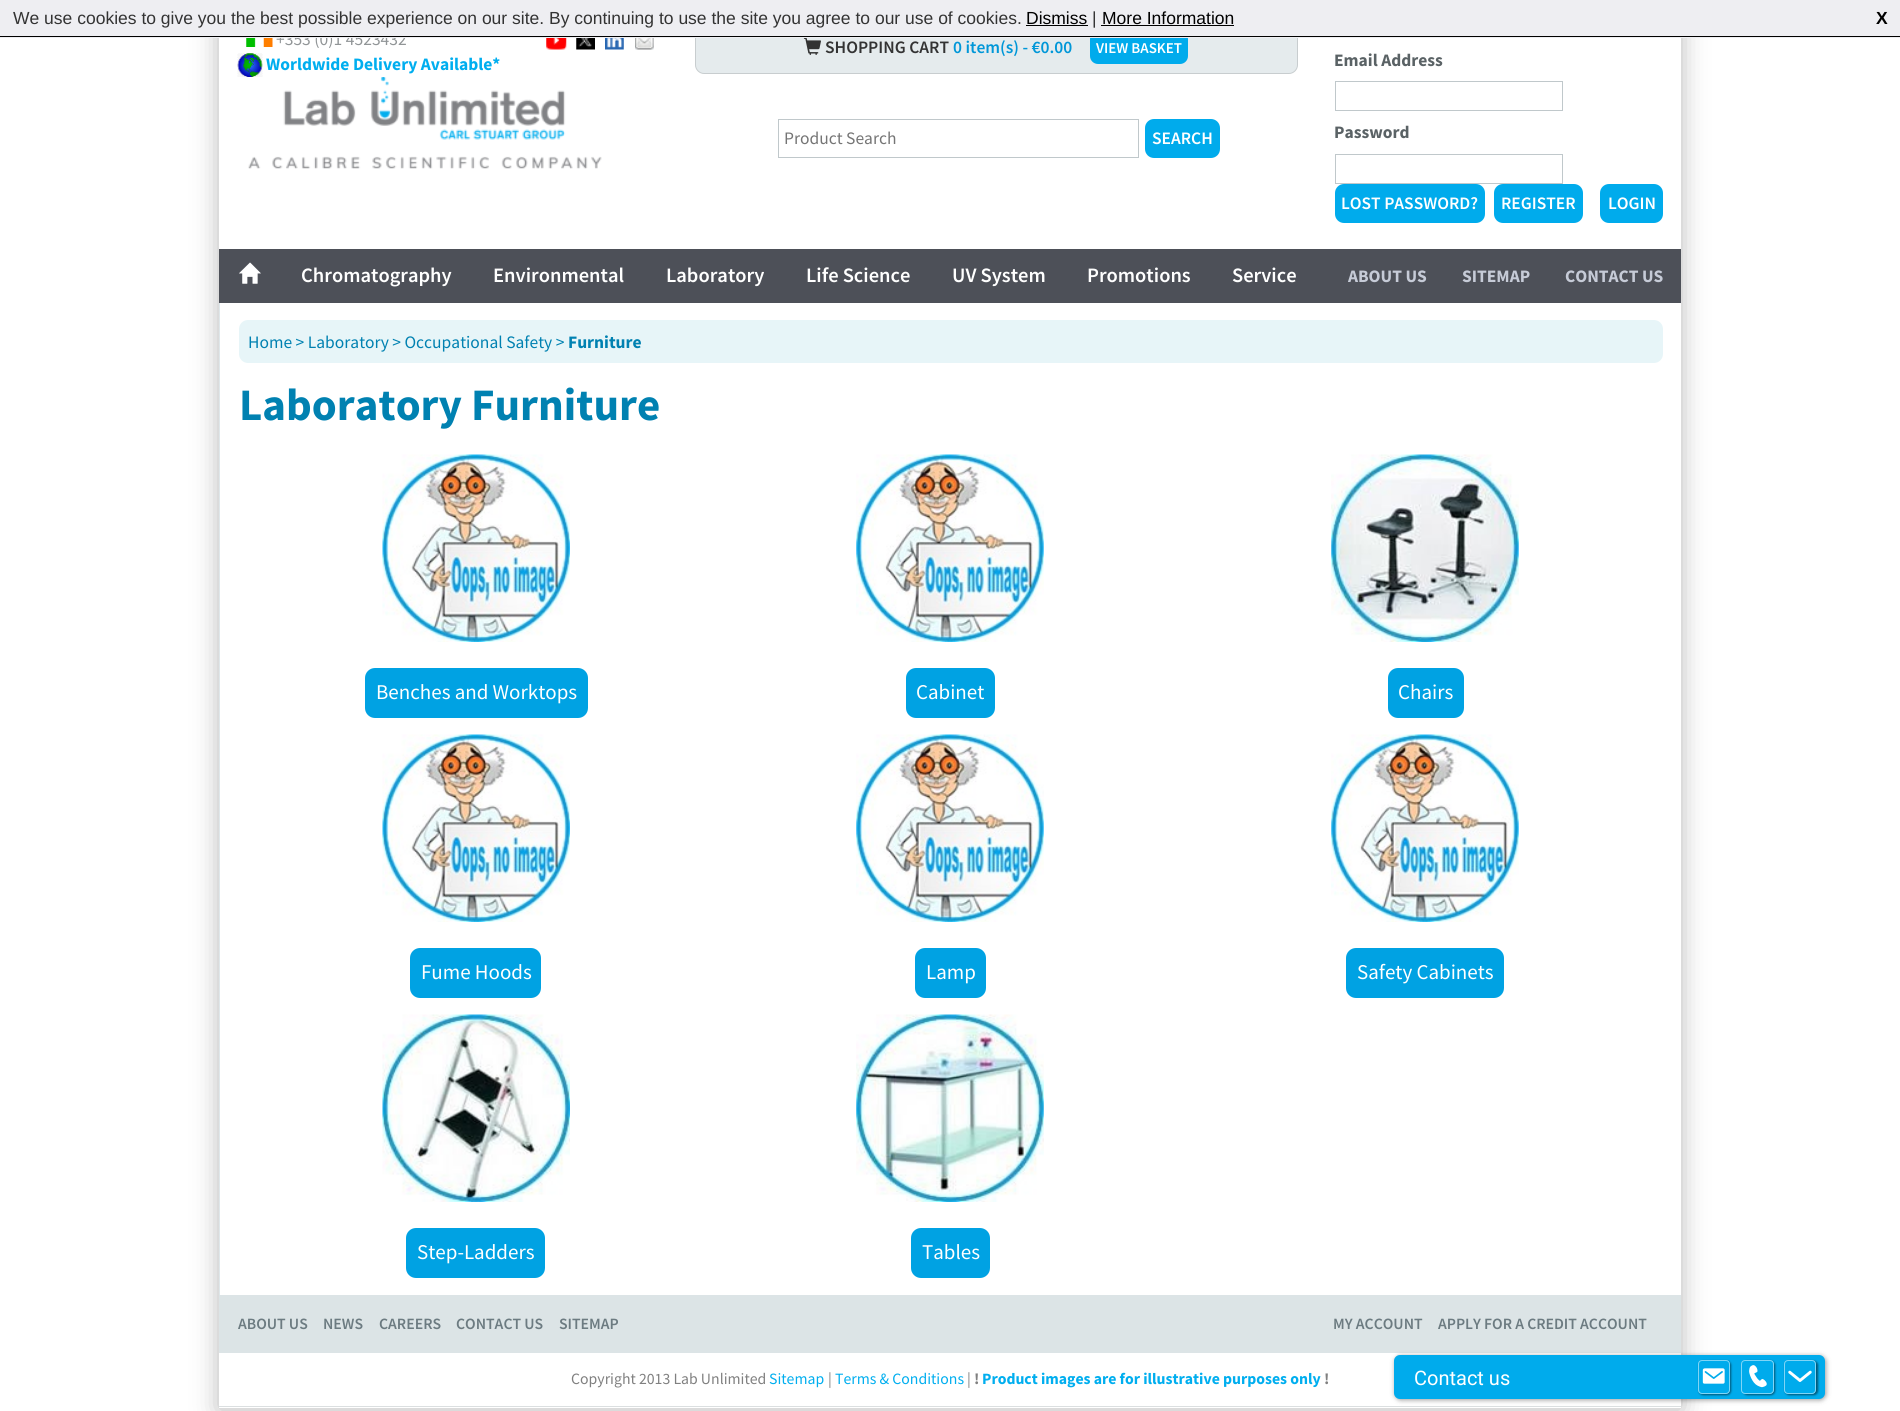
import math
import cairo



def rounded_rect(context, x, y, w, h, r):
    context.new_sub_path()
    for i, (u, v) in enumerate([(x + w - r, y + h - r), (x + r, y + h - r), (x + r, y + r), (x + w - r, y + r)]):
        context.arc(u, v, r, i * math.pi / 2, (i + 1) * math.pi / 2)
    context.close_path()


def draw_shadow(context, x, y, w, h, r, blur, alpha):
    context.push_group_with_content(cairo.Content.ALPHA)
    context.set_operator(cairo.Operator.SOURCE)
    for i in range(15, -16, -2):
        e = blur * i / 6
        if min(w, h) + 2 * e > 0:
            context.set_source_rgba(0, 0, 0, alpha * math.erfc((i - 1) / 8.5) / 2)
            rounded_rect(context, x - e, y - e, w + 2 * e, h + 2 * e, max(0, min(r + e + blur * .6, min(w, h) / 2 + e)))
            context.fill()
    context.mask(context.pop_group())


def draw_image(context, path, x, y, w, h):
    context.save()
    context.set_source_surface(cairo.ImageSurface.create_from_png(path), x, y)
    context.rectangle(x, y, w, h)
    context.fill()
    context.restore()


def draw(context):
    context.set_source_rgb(1, 1, 1)
    context.paint()
    context.set_source_rgb(126 / 255, 126 / 255, 126 / 255)
    draw_shadow(context, 219, 24, 1462, 1386, 0, 12.5, 0.57)
    context.set_source_rgb(1, 1, 1)
    context.rectangle(219, 38, 1462, 1370)
    context.fill()
    context.set_source_rgb(219 / 255, 223 / 255, 224 / 255)
    context.rectangle(219, 1406, 1462, 1)
    context.fill()
    draw_image(context, "images/1.png", 246, 38, 27, 9)
    draw_image(context, "images/2.png", 546, 38, 21, 12)
    draw_image(context, "images/3.png", 576, 38, 19, 12)
    draw_image(context, "images/4.png", 605, 38, 19, 12)
    draw_image(context, "images/5.png", 635, 38, 19, 12)
    draw_image(context, "images/6.png", 237, 53, 26, 24)
    context.set_source_rgb(229 / 255, 235 / 255, 237 / 255)
    context.new_path()
    context.move_to(695.5, 21.5)
    context.line_to(1297.5, 21.5)
    context.line_to(1297.5, 65)
    context.curve_to(1297.5, 69.5, 1293.5, 73.5, 1289, 73.5)
    context.line_to(704, 73.5)
    context.curve_to(699.5, 73.5, 695.5, 69.5, 695.5, 65)
    context.close_path()
    context.fill_preserve()
    context.set_source_rgb(200 / 255, 205 / 255, 207 / 255)
    context.set_line_width(1)
    context.stroke()
    draw_image(context, "images/7.png", 803, 38, 18, 17)
    context.set_source_rgb(0, 171 / 255, 236 / 255)
    rounded_rect(context, 1090, 31, 98, 33, 8)
    context.fill()
    draw_image(context, "images/8.png", 248, 77, 354, 92)
    context.rectangle(778.5, 119.5, 360, 38)
    context.set_source_rgb(192 / 255, 200 / 255, 203 / 255)
    context.stroke()
    context.set_source_rgb(0, 171 / 255, 236 / 255)
    rounded_rect(context, 1145, 119, 75, 39, 9)
    context.fill()
    context.rectangle(1335.5, 81.5, 227, 29)
    context.set_source_rgb(192 / 255, 200 / 255, 203 / 255)
    context.stroke()
    context.rectangle(1335.5, 154.5, 227, 29)
    context.stroke()
    context.set_source_rgb(0, 171 / 255, 236 / 255)
    rounded_rect(context, 1335, 184, 150, 39, 9)
    context.fill()
    rounded_rect(context, 1494, 184, 89, 39, 9)
    context.fill()
    rounded_rect(context, 1600, 184, 63, 39, 9)
    context.fill()
    context.set_source_rgb(77 / 255, 80 / 255, 88 / 255)
    context.rectangle(219, 249, 1462, 54)
    context.fill()
    draw_image(context, "images/9.png", 239, 262, 22, 22)
    context.set_source_rgb(223 / 255, 231 / 255, 234 / 255)
    context.rectangle(219, 303, 1, 992)
    context.fill()
    context.set_source_rgb(231 / 255, 245 / 255, 248 / 255)
    rounded_rect(context, 239, 320, 1424, 43, 9)
    context.fill()
    draw_image(context, "images/10.png", 382, 454, 188, 188)
    context.set_source_rgb(0, 162 / 255, 227 / 255)
    rounded_rect(context, 365, 668, 223, 50, 10)
    context.fill()
    draw_image(context, "images/11.png", 856, 454, 188, 188)
    rounded_rect(context, 906, 668, 89, 50, 10)
    context.fill()
    draw_image(context, "images/12.png", 1331, 454, 188, 188)
    rounded_rect(context, 1388, 668, 76, 50, 10)
    context.fill()
    draw_image(context, "images/10.png", 382, 734, 188, 188)
    rounded_rect(context, 410, 948, 131, 50, 10)
    context.fill()
    draw_image(context, "images/11.png", 856, 734, 188, 188)
    rounded_rect(context, 915, 948, 71, 50, 10)
    context.fill()
    draw_image(context, "images/13.png", 1331, 734, 188, 188)
    rounded_rect(context, 1346, 948, 158, 50, 10)
    context.fill()
    draw_image(context, "images/14.png", 382, 1014, 188, 188)
    rounded_rect(context, 406, 1228, 139, 50, 10)
    context.fill()
    draw_image(context, "images/15.png", 856, 1014, 188, 188)
    rounded_rect(context, 911, 1228, 79, 50, 10)
    context.fill()
    context.set_source_rgb(220 / 255, 228 / 255, 230 / 255)
    context.rectangle(219, 1295, 1462, 58)
    context.fill()
    context.set_source_rgb(0, 0, 0)
    draw_shadow(context, 1395, 1356, 431, 44, 6, 2.5, 0.4)
    context.set_source_rgb(0, 171 / 255, 236 / 255)
    rounded_rect(context, 1394, 1355, 431, 44, 6)
    context.fill()
    context.save()
    context.set_fill_rule(cairo.FillRule.EVEN_ODD)
    context.new_path()
    context.move_to(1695, 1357)
    context.line_to(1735, 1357)
    context.line_to(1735, 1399)
    context.line_to(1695, 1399)
    context.close_path()
    context.move_to(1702, 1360)
    context.line_to(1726, 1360)
    context.curve_to(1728, 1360, 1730, 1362, 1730, 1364)
    context.line_to(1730, 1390)
    context.curve_to(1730, 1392, 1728, 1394, 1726, 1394)
    context.line_to(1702, 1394)
    context.curve_to(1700, 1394, 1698, 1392, 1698, 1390)
    context.line_to(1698, 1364)
    context.curve_to(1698, 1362, 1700, 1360, 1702, 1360)
    context.close_path()
    context.clip()
    context.set_source_rgb(0, 0, 0)
    draw_shadow(context, 1699, 1361, 32, 34, 4, 1, 0.5)
    context.restore()
    rounded_rect(context, 1698.5, 1360.5, 31, 33, 3.5)
    context.set_source_rgba(1, 1, 1, 0.5)
    context.stroke()
    draw_image(context, "images/16.png", 1702, 1368, 23, 16)
    context.save()
    context.set_fill_rule(cairo.FillRule.EVEN_ODD)
    context.new_path()
    context.move_to(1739, 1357)
    context.line_to(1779, 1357)
    context.line_to(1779, 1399)
    context.line_to(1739, 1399)
    context.close_path()
    context.move_to(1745, 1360)
    context.line_to(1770, 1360)
    context.curve_to(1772, 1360, 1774, 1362, 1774, 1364)
    context.line_to(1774, 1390)
    context.curve_to(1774, 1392, 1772, 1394, 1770, 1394)
    context.line_to(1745, 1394)
    context.curve_to(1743, 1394, 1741, 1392, 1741, 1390)
    context.line_to(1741, 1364)
    context.curve_to(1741, 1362, 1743, 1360, 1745, 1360)
    context.close_path()
    context.clip()
    context.set_source_rgb(0, 0, 0)
    draw_shadow(context, 1743, 1361, 32, 34, 4, 1, 0.5)
    context.restore()
    rounded_rect(context, 1741.5, 1360.5, 32, 33, 3.5)
    context.stroke()
    draw_image(context, "images/17.png", 1749, 1365, 18, 23)
    context.save()
    context.set_fill_rule(cairo.FillRule.EVEN_ODD)
    context.new_path()
    context.move_to(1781, 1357)
    context.line_to(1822, 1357)
    context.line_to(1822, 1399)
    context.line_to(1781, 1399)
    context.close_path()
    context.move_to(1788, 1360)
    context.line_to(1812, 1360)
    context.curve_to(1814, 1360, 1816, 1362, 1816, 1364)
    context.line_to(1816, 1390)
    context.curve_to(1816, 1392, 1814, 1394, 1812, 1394)
    context.line_to(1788, 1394)
    context.curve_to(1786, 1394, 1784, 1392, 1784, 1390)
    context.line_to(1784, 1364)
    context.curve_to(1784, 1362, 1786, 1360, 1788, 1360)
    context.close_path()
    context.clip()
    context.set_source_rgb(0, 0, 0)
    draw_shadow(context, 1785, 1361, 33, 34, 4, 1, 0.5)
    context.restore()
    rounded_rect(context, 1784.5, 1360.5, 31, 33, 3.5)
    context.stroke()
    draw_image(context, "images/18.png", 1788, 1370, 24, 12)
    context.select_font_face("Source Sans Pro")
    context.set_font_size(17.5)
    context.set_source_rgb(145 / 255, 149 / 255, 151 / 255)
    context.move_to(276, 45)
    context.show_text("+353 (0)1 4523432")
    context.set_source_rgb(238 / 255, 238 / 255, 242 / 255)
    context.rectangle(0, 0, 1900, 38)
    context.fill()
    context.select_font_face("Liberation Sans", cairo.FontSlant.NORMAL, cairo.FontWeight.BOLD)
    context.set_source_rgb(0, 0, 0)
    context.move_to(1876, 24)
    context.show_text("X")
    context.select_font_face("Liberation Sans")
    context.move_to(1102, 24)
    context.show_text("More Information")
    context.rectangle(1101, 25, 133, 1)
    context.fill()
    context.set_source_rgb(51 / 255, 51 / 255, 51 / 255)
    context.move_to(1092, 24)
    context.show_text("|")
    context.set_source_rgb(0, 0, 0)
    context.move_to(1026, 24)
    context.show_text("Dismiss")
    context.rectangle(1026, 25, 62, 1)
    context.fill()
    context.set_source_rgb(51 / 255, 51 / 255, 51 / 255)
    context.move_to(13, 24)
    context.show_text("We use cookies to give you the best possible experience on our site. By continuing to use the site you agree to our use of cookies.")
    context.set_source_rgb(0, 0, 0)
    context.rectangle(0, 36, 1900, 1)
    context.fill()
    context.select_font_face("Source Sans Pro", cairo.FontSlant.NORMAL, cairo.FontWeight.BOLD)
    context.set_source_rgb(0, 174 / 255, 239 / 255)
    context.move_to(266, 70)
    context.show_text("Worldwide Delivery Available*")
    context.select_font_face("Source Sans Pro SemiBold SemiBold")
    context.set_source_rgb(51 / 255, 51 / 255, 51 / 255)
    context.move_to(825, 53)
    context.show_text("SHOPPING CART")
    context.set_source_rgb(0, 151 / 255, 216 / 255)
    context.move_to(953, 53)
    context.show_text("0 item(s) - €0.00")
    context.set_font_size(15)
    context.set_source_rgb(1, 1, 1)
    context.move_to(1096, 53)
    context.show_text("VIEW BASKET")
    context.select_font_face("Source Sans Pro")
    context.set_font_size(17.5)
    context.set_source_rgb(117 / 255, 117 / 255, 117 / 255)
    context.move_to(784, 144)
    context.show_text("Product Search")
    context.select_font_face("Source Sans Pro SemiBold SemiBold")
    context.set_source_rgb(1, 1, 1)
    context.move_to(1152, 144)
    context.show_text("SEARCH")
    context.select_font_face("Source Sans Pro", cairo.FontSlant.NORMAL, cairo.FontWeight.BOLD)
    context.set_source_rgb(90 / 255, 98 / 255, 101 / 255)
    context.move_to(1334, 66)
    context.show_text("Email Address")
    context.move_to(1334, 138)
    context.show_text("Password")
    context.select_font_face("Source Sans Pro SemiBold SemiBold")
    context.set_source_rgb(1, 1, 1)
    context.move_to(1341, 209)
    context.show_text("LOST PASSWORD?")
    context.move_to(1501, 209)
    context.show_text("REGISTER")
    context.move_to(1608, 209)
    context.show_text("LOGIN")
    context.set_font_size(20.5)
    context.move_to(301, 282)
    context.show_text("Chromatography")
    context.move_to(493, 282)
    context.show_text("Environmental")
    context.move_to(666, 282)
    context.show_text("Laboratory")
    context.move_to(806, 282)
    context.show_text("Life Science")
    context.move_to(952, 282)
    context.show_text("UV System")
    context.move_to(1087, 282)
    context.show_text("Promotions")
    context.move_to(1232, 282)
    context.show_text("Service")
    context.select_font_face("Source Sans Pro", cairo.FontSlant.NORMAL, cairo.FontWeight.BOLD)
    context.set_font_size(17.5)
    context.set_source_rgb(198 / 255, 203 / 255, 215 / 255)
    context.move_to(1348, 282)
    context.show_text("ABOUT US")
    context.move_to(1462, 282)
    context.show_text("SITEMAP")
    context.move_to(1565, 282)
    context.show_text("CONTACT US")
    context.select_font_face("Source Sans Pro")
    context.set_source_rgb(0, 129 / 255, 177 / 255)
    context.move_to(248, 348)
    context.show_text("Home > Laboratory > Occupational Safety >")
    context.select_font_face("Source Sans Pro", cairo.FontSlant.NORMAL, cairo.FontWeight.BOLD)
    context.move_to(568, 348)
    context.show_text("Furniture")
    context.set_font_size(45)
    context.move_to(239, 420)
    context.show_text("Laboratory Furniture")
    context.select_font_face("Source Sans Pro")
    context.set_font_size(21)
    context.set_source_rgb(1, 1, 1)
    context.move_to(376, 699)
    context.show_text("Benches and Worktops")
    context.move_to(916, 699)
    context.show_text("Cabinet")
    context.move_to(1398, 699)
    context.show_text("Chairs")
    context.move_to(421, 979)
    context.show_text("Fume Hoods")
    context.move_to(926, 979)
    context.show_text("Lamp")
    context.move_to(1357, 979)
    context.show_text("Safety Cabinets")
    context.move_to(417, 1259)
    context.show_text("Step-Ladders")
    context.move_to(922, 1259)
    context.show_text("Tables")
    context.select_font_face("Source Sans Pro SemiBold SemiBold")
    context.set_font_size(15.75)
    context.set_source_rgb(108 / 255, 123 / 255, 129 / 255)
    context.move_to(238, 1329)
    context.show_text("ABOUT US")
    context.move_to(323, 1329)
    context.show_text("NEWS")
    context.move_to(379, 1329)
    context.show_text("CAREERS")
    context.move_to(456, 1329)
    context.show_text("CONTACT US")
    context.move_to(559, 1329)
    context.show_text("SITEMAP")
    context.move_to(1333, 1329)
    context.show_text("MY ACCOUNT")
    context.move_to(1438, 1329)
    context.show_text("APPLY FOR A CREDIT ACCOUNT")
    context.select_font_face("Source Sans Pro")
    context.set_source_rgb(128 / 255, 128 / 255, 128 / 255)
    context.move_to(571, 1384)
    context.show_text("Copyright 2013 Lab Unlimited")
    context.set_source_rgb(0, 174 / 255, 239 / 255)
    context.move_to(769, 1384)
    context.show_text("Sitemap")
    context.set_source_rgb(128 / 255, 128 / 255, 128 / 255)
    context.move_to(828, 1384)
    context.show_text("|")
    context.set_source_rgb(0, 174 / 255, 239 / 255)
    context.move_to(835, 1384)
    context.show_text("Terms & Conditions")
    context.set_source_rgb(128 / 255, 128 / 255, 128 / 255)
    context.move_to(967, 1384)
    context.show_text("|")
    context.select_font_face("Source Sans Pro", cairo.FontSlant.NORMAL, cairo.FontWeight.BOLD)
    context.move_to(974, 1384)
    context.show_text("!")
    context.set_source_rgb(0, 174 / 255, 239 / 255)
    context.move_to(982, 1384)
    context.show_text("Product images are for illustrative purposes only")
    context.set_source_rgb(128 / 255, 128 / 255, 128 / 255)
    context.move_to(1324, 1384)
    context.show_text("!")
    context.select_font_face("Roboto")
    context.set_font_size(20)
    context.set_source_rgb(1, 1, 1)
    context.move_to(1414, 1385)
    context.show_text("Contact us")


surface = cairo.ImageSurface(cairo.Format.RGB24, 1900, 1411)
context = cairo.Context(surface)
options = cairo.FontOptions()
options.set_hint_metrics(cairo.HintMetrics.OFF)
options.set_hint_style(cairo.HintStyle.NONE)
context.set_font_options(options)
context.set_miter_limit(4)
draw(context)
surface.write_to_png("out.png")
